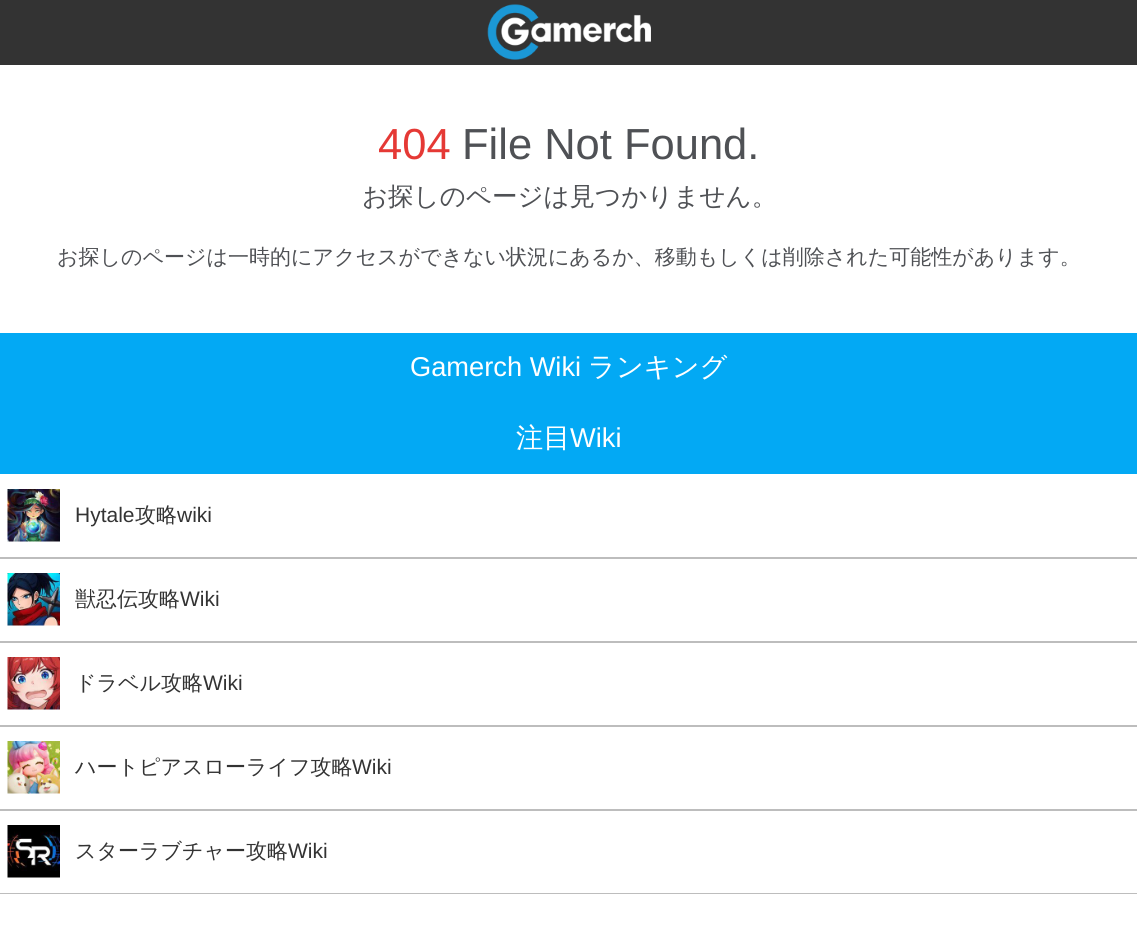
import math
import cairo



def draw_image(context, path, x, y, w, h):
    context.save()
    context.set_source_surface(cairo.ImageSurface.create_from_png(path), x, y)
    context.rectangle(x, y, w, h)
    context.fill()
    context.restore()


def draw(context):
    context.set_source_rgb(51 / 255, 51 / 255, 51 / 255)
    context.paint()
    draw_image(context, "images/1.png", 487, 4, 164, 56)
    context.set_source_rgb(1, 1, 1)
    context.rectangle(0, 65, 1137, 865)
    context.fill()
    context.set_source_rgb(3 / 255, 169 / 255, 244 / 255)
    context.rectangle(0, 333, 1137, 141)
    context.fill()
    context.set_source_rgb(189 / 255, 189 / 255, 189 / 255)
    context.rectangle(0, 557, 1137, 2)
    context.fill()
    draw_image(context, "images/2.png", 7, 489, 53, 53)
    context.rectangle(0, 641, 1137, 2)
    context.fill()
    draw_image(context, "images/3.png", 7, 573, 53, 53)
    context.rectangle(0, 725, 1137, 2)
    context.fill()
    draw_image(context, "images/4.png", 7, 657, 53, 53)
    context.rectangle(0, 809, 1137, 2)
    context.fill()
    draw_image(context, "images/5.png", 7, 741, 53, 53)
    context.rectangle(0, 893, 1137, 1)
    context.fill()
    draw_image(context, "images/6.png", 7, 825, 53, 53)
    context.select_font_face("Liberation Sans")
    context.set_font_size(43.5)
    context.set_source_rgb(229 / 255, 57 / 255, 53 / 255)
    context.move_to(378, 159)
    context.show_text("404")
    context.set_source_rgb(79 / 255, 81 / 255, 85 / 255)
    context.move_to(462, 159)
    context.show_text("File Not Found.")
    context.select_font_face("WenQuanYi Zen Hei Medium")
    context.set_font_size(25.5)
    context.move_to(362, 205)
    context.show_text("お探しのページは見つかりません。")
    context.set_font_size(21)
    context.move_to(57, 264)
    context.show_text("お探しのページは一時的にアクセスができない状況にあるか、移動もしくは削除された可能性があります。")
    context.select_font_face("Liberation Sans")
    context.set_font_size(27.25)
    context.set_source_rgb(1, 1, 1)
    context.move_to(410, 376)
    context.show_text("Gamerch Wiki")
    context.select_font_face("WenQuanYi Zen Hei Medium")
    context.move_to(588, 376)
    context.show_text("ランキング")
    context.move_to(516, 447)
    context.show_text("注目")
    context.select_font_face("Liberation Sans")
    context.move_to(570, 447)
    context.show_text("Wiki")
    context.set_font_size(21)
    context.set_source_rgb(51 / 255, 51 / 255, 51 / 255)
    context.move_to(75, 522)
    context.show_text("Hytale")
    context.select_font_face("WenQuanYi Zen Hei Medium")
    context.move_to(135, 522)
    context.show_text("攻略")
    context.select_font_face("Liberation Sans")
    context.move_to(177, 522)
    context.show_text("wiki")
    context.select_font_face("WenQuanYi Zen Hei Medium")
    context.move_to(75, 606)
    context.show_text("獣忍伝攻略")
    context.select_font_face("Liberation Sans")
    context.move_to(180, 606)
    context.show_text("Wiki")
    context.select_font_face("WenQuanYi Zen Hei Medium")
    context.move_to(75, 690)
    context.show_text("ドラベル攻略")
    context.select_font_face("Liberation Sans")
    context.move_to(203, 690)
    context.show_text("Wiki")
    context.select_font_face("WenQuanYi Zen Hei Medium")
    context.move_to(75, 774)
    context.show_text("ハートピアスローライフ攻略")
    context.select_font_face("Liberation Sans")
    context.move_to(352, 774)
    context.show_text("Wiki")
    context.select_font_face("WenQuanYi Zen Hei Medium")
    context.move_to(75, 858)
    context.show_text("スターラブチャー攻略")
    context.select_font_face("Liberation Sans")
    context.move_to(288, 858)
    context.show_text("Wiki")


surface = cairo.ImageSurface(cairo.Format.RGB24, 1137, 930)
context = cairo.Context(surface)
options = cairo.FontOptions()
options.set_hint_metrics(cairo.HintMetrics.OFF)
options.set_hint_style(cairo.HintStyle.NONE)
context.set_font_options(options)
context.set_miter_limit(4)
draw(context)
surface.write_to_png("out.png")
